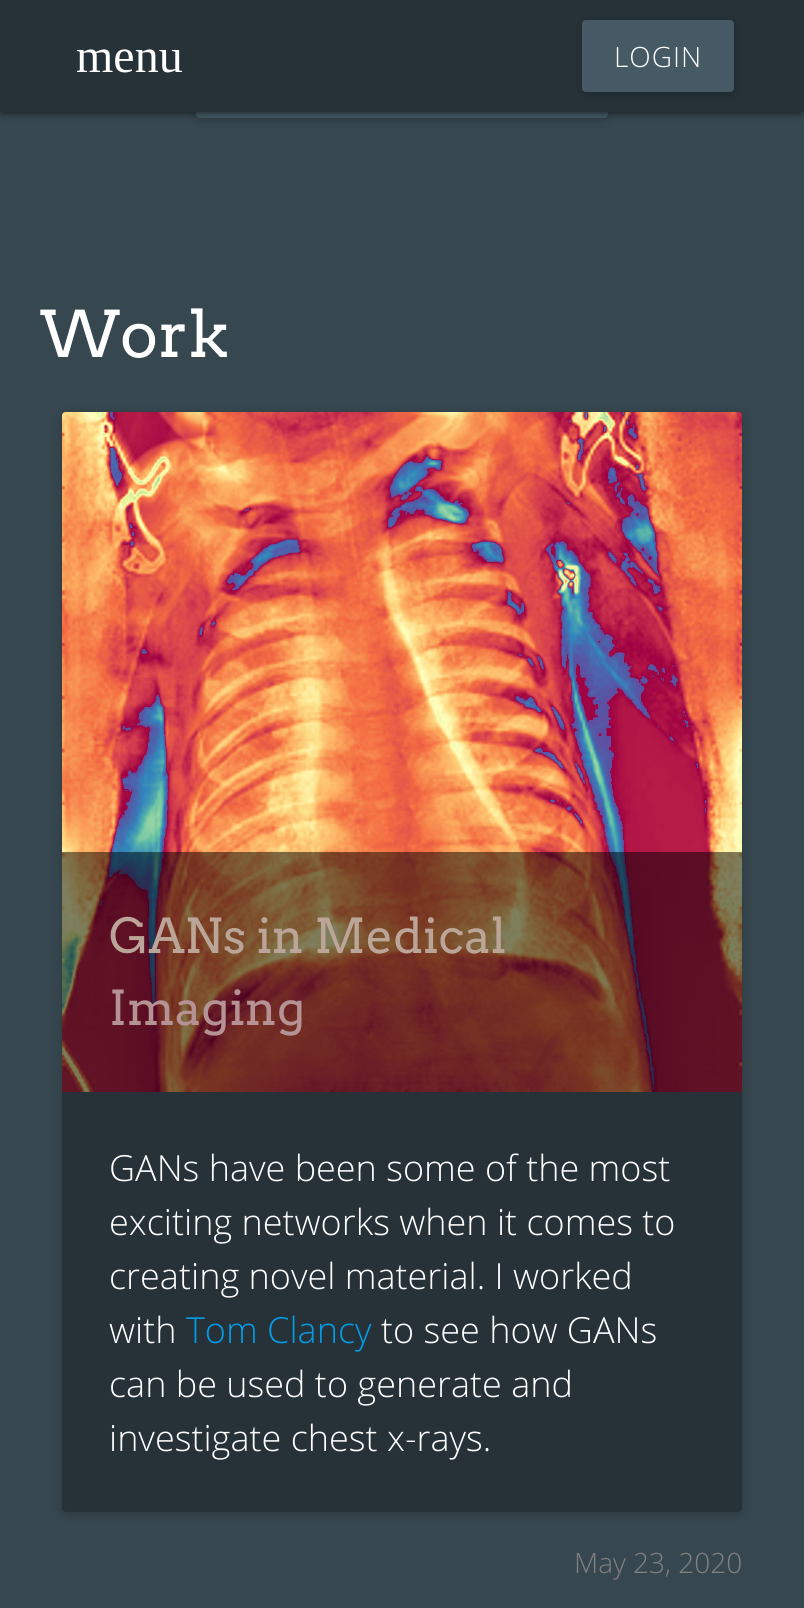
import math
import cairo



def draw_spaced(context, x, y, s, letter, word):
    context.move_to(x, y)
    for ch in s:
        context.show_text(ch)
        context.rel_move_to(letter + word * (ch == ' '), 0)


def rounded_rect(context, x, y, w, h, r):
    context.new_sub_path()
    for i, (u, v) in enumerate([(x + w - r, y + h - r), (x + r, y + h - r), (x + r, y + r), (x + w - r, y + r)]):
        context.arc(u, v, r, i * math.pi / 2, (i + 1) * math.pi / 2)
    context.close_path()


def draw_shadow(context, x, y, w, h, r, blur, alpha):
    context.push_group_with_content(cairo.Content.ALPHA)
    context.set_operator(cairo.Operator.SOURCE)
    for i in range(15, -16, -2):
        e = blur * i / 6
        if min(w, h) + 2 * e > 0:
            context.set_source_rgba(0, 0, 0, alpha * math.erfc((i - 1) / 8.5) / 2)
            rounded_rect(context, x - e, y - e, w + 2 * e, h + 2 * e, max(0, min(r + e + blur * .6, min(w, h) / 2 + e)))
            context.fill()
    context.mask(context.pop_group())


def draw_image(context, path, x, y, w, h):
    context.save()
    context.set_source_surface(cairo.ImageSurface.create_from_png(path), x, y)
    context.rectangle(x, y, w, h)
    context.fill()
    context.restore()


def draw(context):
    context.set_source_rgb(55 / 255, 71 / 255, 79 / 255)
    context.paint()
    context.set_source_rgb(0, 0, 0)
    draw_shadow(context, 196, 12, 412, 108, 4, 5, 0.2)
    context.set_source_rgb(69 / 255, 90 / 255, 100 / 255)
    rounded_rect(context, 196, 10, 412, 108, 4)
    context.fill()
    context.set_source_rgb(0, 0, 0)
    draw_shadow(context, 0, 2, 804, 112, 0, 5, 0.2)
    draw_shadow(context, 4, 10, 796, 104, 0, 1, 0.12)
    draw_shadow(context, 0, 4, 804, 112, 0, 2, 0.14)
    context.set_source_rgb(38 / 255, 50 / 255, 56 / 255)
    context.rectangle(0, 0, 804, 112)
    context.fill()
    context.set_source_rgb(0, 0, 0)
    draw_shadow(context, 582, 22, 152, 72, 4, 5, 0.2)
    context.set_source_rgb(69 / 255, 90 / 255, 100 / 255)
    rounded_rect(context, 582, 20, 152, 72, 4)
    context.fill()
    context.set_source_rgb(0, 0, 0)
    draw_shadow(context, 62, 414, 680, 1100, 4, 5, 0.2)
    context.set_source_rgb(38 / 255, 50 / 255, 56 / 255)
    rounded_rect(context, 62, 412, 680, 1100, 4)
    context.fill()
    draw_image(context, "images/1.png", 62, 412, 680, 680)
    context.set_source_rgba(0, 0, 0, 0.5)
    context.rectangle(62, 852, 680, 240)
    context.fill()
    context.select_font_face("Liberation Serif")
    context.set_font_size(48)
    context.set_source_rgb(1, 1, 1)
    context.move_to(76, 72)
    context.show_text("menu")
    context.select_font_face("Open Sans Light")
    context.set_font_size(28)
    draw_spaced(context, 614, 67, "LOGIN", 1, 0)
    context.select_font_face("Arvo")
    context.set_font_size(64)
    context.move_to(40, 357)
    context.show_text("Work")
    context.set_font_size(48)
    context.set_source_rgb(187 / 255, 165 / 255, 152 / 255)
    context.move_to(109, 953)
    context.show_text("GANs in Medical")
    context.set_source_rgb(181 / 255, 146 / 255, 147 / 255)
    context.move_to(109, 1025)
    context.show_text("Imaging")
    context.select_font_face("Open Sans Light")
    context.set_font_size(36)
    context.set_source_rgb(1, 1, 1)
    context.move_to(109, 1181)
    context.show_text("GANs have been some of the most")
    context.move_to(109, 1235)
    context.show_text("exciting networks when it comes to")
    context.move_to(109, 1289)
    context.show_text("creating novel material. I worked")
    context.move_to(109, 1343)
    context.show_text("with")
    context.set_source_rgb(3 / 255, 155 / 255, 229 / 255)
    context.move_to(186, 1343)
    context.show_text("Tom Clancy")
    context.set_source_rgb(1, 1, 1)
    context.move_to(381, 1343)
    context.show_text("to see how GANs")
    context.move_to(109, 1397)
    context.show_text("can be used to generate and")
    context.move_to(109, 1451)
    context.show_text("investigate chest x-rays.")
    context.set_font_size(28)
    context.set_source_rgb(128 / 255, 128 / 255, 128 / 255)
    context.move_to(574, 1573)
    context.show_text("May 23, 2020")


surface = cairo.ImageSurface(cairo.Format.RGB24, 804, 1608)
context = cairo.Context(surface)
options = cairo.FontOptions()
options.set_hint_metrics(cairo.HintMetrics.OFF)
options.set_hint_style(cairo.HintStyle.NONE)
context.set_font_options(options)
context.set_miter_limit(4)
draw(context)
surface.write_to_png("out.png")
